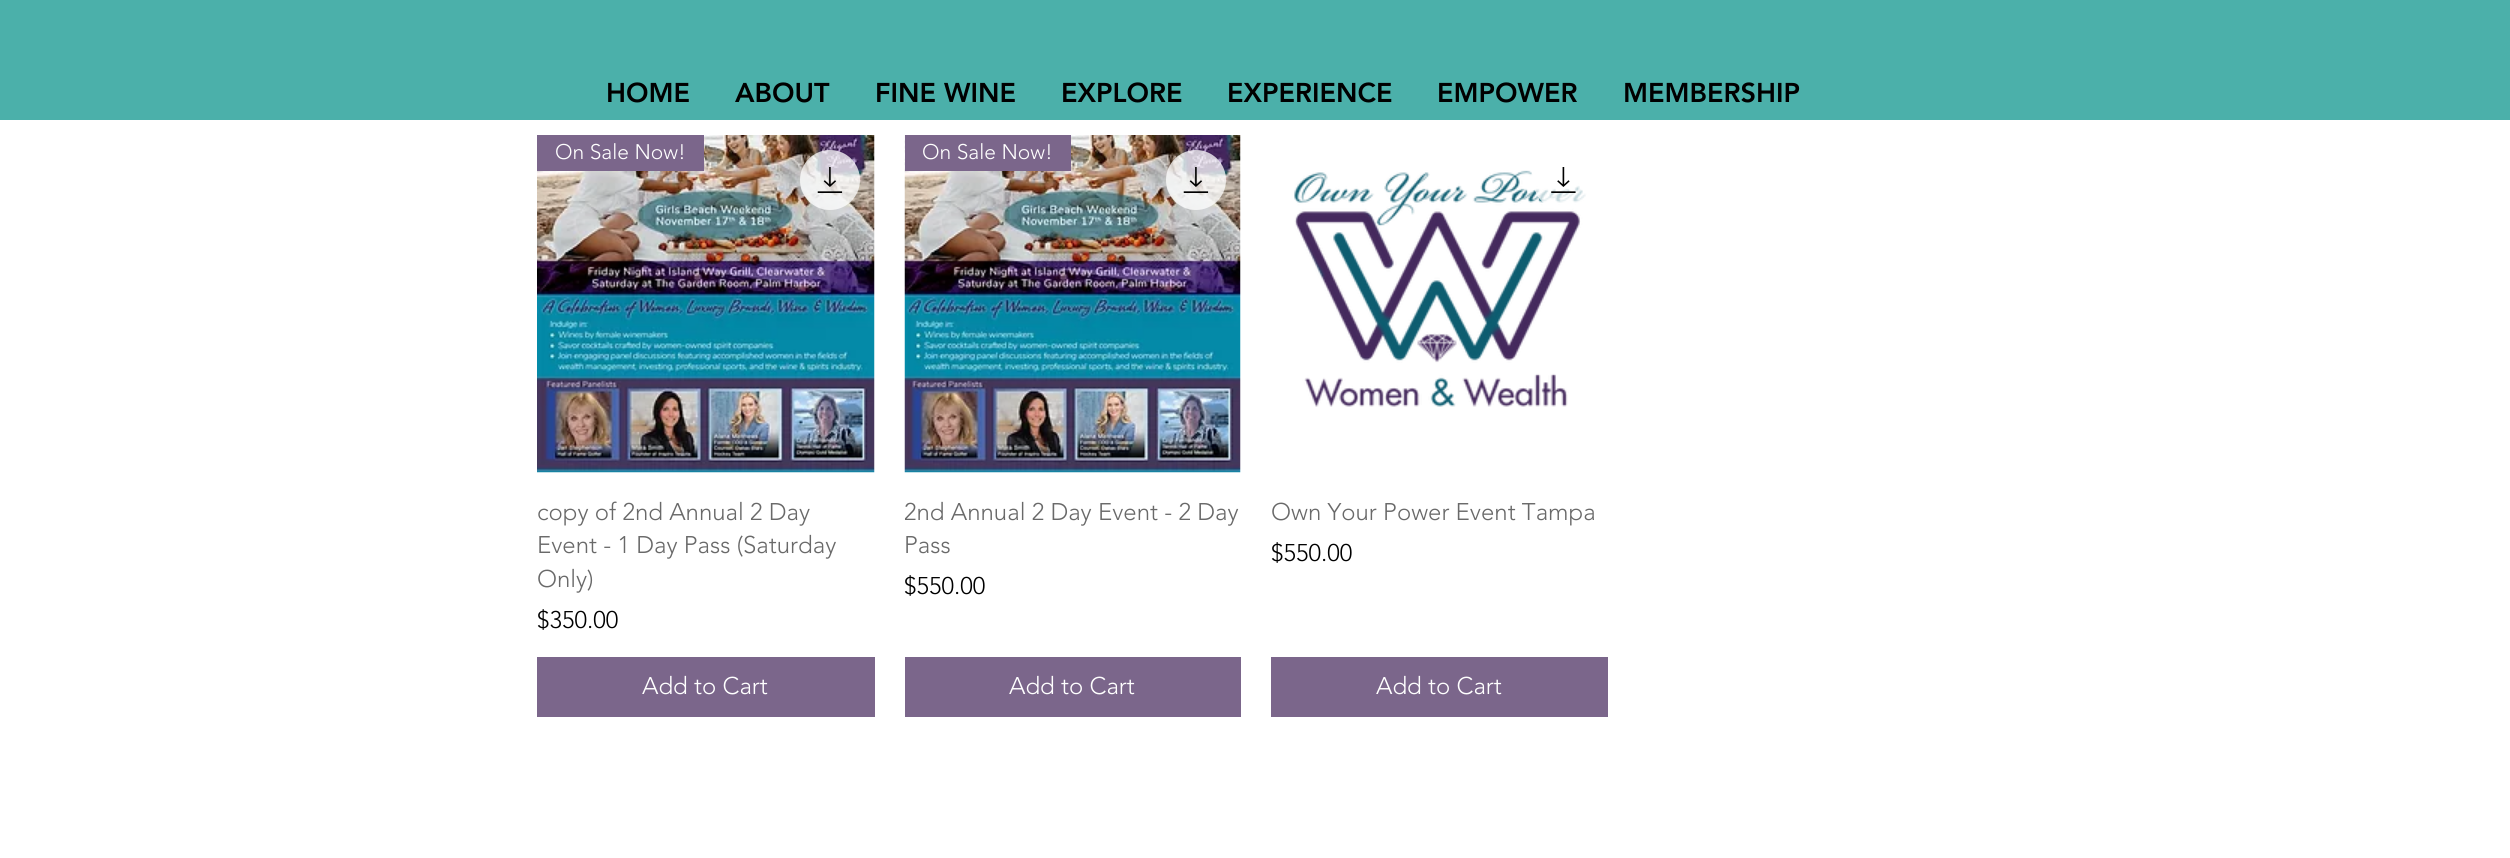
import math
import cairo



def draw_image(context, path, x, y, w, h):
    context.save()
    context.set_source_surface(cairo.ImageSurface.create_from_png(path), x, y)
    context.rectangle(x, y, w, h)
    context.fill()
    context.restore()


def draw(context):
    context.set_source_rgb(1, 1, 1)
    context.paint()
    context.set_source_rgb(75 / 255, 176 / 255, 170 / 255)
    context.rectangle(0, 0, 2510, 120)
    context.fill()
    draw_image(context, "images/1.png", 537, 135, 338, 338)
    context.set_source_rgba(1, 1, 1, 0.75)
    context.arc(830, 180, 30, 0, 2 * math.pi)
    context.fill()
    draw_image(context, "images/2.png", 817, 167, 26, 26)
    context.set_source_rgb(123 / 255, 102 / 255, 139 / 255)
    context.rectangle(537, 135, 167, 36)
    context.fill()
    context.rectangle(537, 657, 338, 60)
    context.fill()
    draw_image(context, "images/3.png", 904, 135, 337, 338)
    context.set_source_rgba(1, 1, 1, 0.75)
    context.arc(1196, 180, 30, 0, 2 * math.pi)
    context.fill()
    draw_image(context, "images/4.png", 1183, 167, 26, 26)
    context.set_source_rgb(123 / 255, 102 / 255, 139 / 255)
    context.rectangle(905, 135, 166, 36)
    context.fill()
    context.rectangle(905, 657, 336, 60)
    context.fill()
    draw_image(context, "images/6.png", 1294, 170, 293, 237)
    context.set_source_rgba(1, 1, 1, 0.75)
    context.arc(1563, 180, 30, 0, 2 * math.pi)
    context.fill()
    draw_image(context, "images/5.png", 1551, 167, 25, 26)
    context.set_source_rgb(123 / 255, 102 / 255, 139 / 255)
    context.rectangle(1271, 657, 337, 60)
    context.fill()
    context.select_font_face("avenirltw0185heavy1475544 Black")
    context.set_font_size(27)
    context.set_source_rgb(0, 0, 0)
    context.move_to(606, 102)
    context.show_text("HOME")
    context.move_to(735, 102)
    context.show_text("ABOUT")
    context.move_to(875, 102)
    context.show_text("FINE WINE")
    context.move_to(1061, 102)
    context.show_text("EXPLORE")
    context.move_to(1227, 102)
    context.show_text("EXPERIENCE")
    context.move_to(1437, 102)
    context.show_text("EMPOWER")
    context.move_to(1623, 102)
    context.show_text("MEMBERSHIP")
    context.select_font_face("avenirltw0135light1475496 Light")
    context.set_font_size(21)
    context.set_source_rgb(1, 1, 1)
    context.move_to(555, 159)
    context.show_text("On Sale Now!")
    context.set_font_size(24)
    context.set_source_rgb(105 / 255, 105 / 255, 105 / 255)
    context.move_to(537, 520)
    context.show_text("copy of 2nd Annual 2 Day")
    context.move_to(537, 553)
    context.show_text("Event - 1 Day Pass (Saturday")
    context.move_to(537, 587)
    context.show_text("Only)")
    context.set_source_rgb(0, 0, 0)
    context.move_to(537, 628)
    context.show_text("$350.00")
    context.set_source_rgb(1, 1, 1)
    context.move_to(642, 694)
    context.show_text("Add to Cart")
    context.set_font_size(21)
    context.move_to(922, 159)
    context.show_text("On Sale Now!")
    context.set_font_size(24)
    context.set_source_rgb(105 / 255, 105 / 255, 105 / 255)
    context.move_to(904, 520)
    context.show_text("2nd Annual 2 Day Event - 2 Day")
    context.move_to(904, 553)
    context.show_text("Pass")
    context.set_source_rgb(0, 0, 0)
    context.move_to(904, 594)
    context.show_text("$550.00")
    context.set_source_rgb(1, 1, 1)
    context.move_to(1009, 694)
    context.show_text("Add to Cart")
    context.set_source_rgb(105 / 255, 105 / 255, 105 / 255)
    context.move_to(1271, 520)
    context.show_text("Own Your Power Event Tampa")
    context.set_source_rgb(0, 0, 0)
    context.move_to(1271, 561)
    context.show_text("$550.00")
    context.set_source_rgb(1, 1, 1)
    context.move_to(1376, 694)
    context.show_text("Add to Cart")


surface = cairo.ImageSurface(cairo.Format.RGB24, 2510, 858)
context = cairo.Context(surface)
options = cairo.FontOptions()
options.set_hint_metrics(cairo.HintMetrics.OFF)
options.set_hint_style(cairo.HintStyle.NONE)
context.set_font_options(options)
context.set_miter_limit(4)
draw(context)
surface.write_to_png("out.png")
